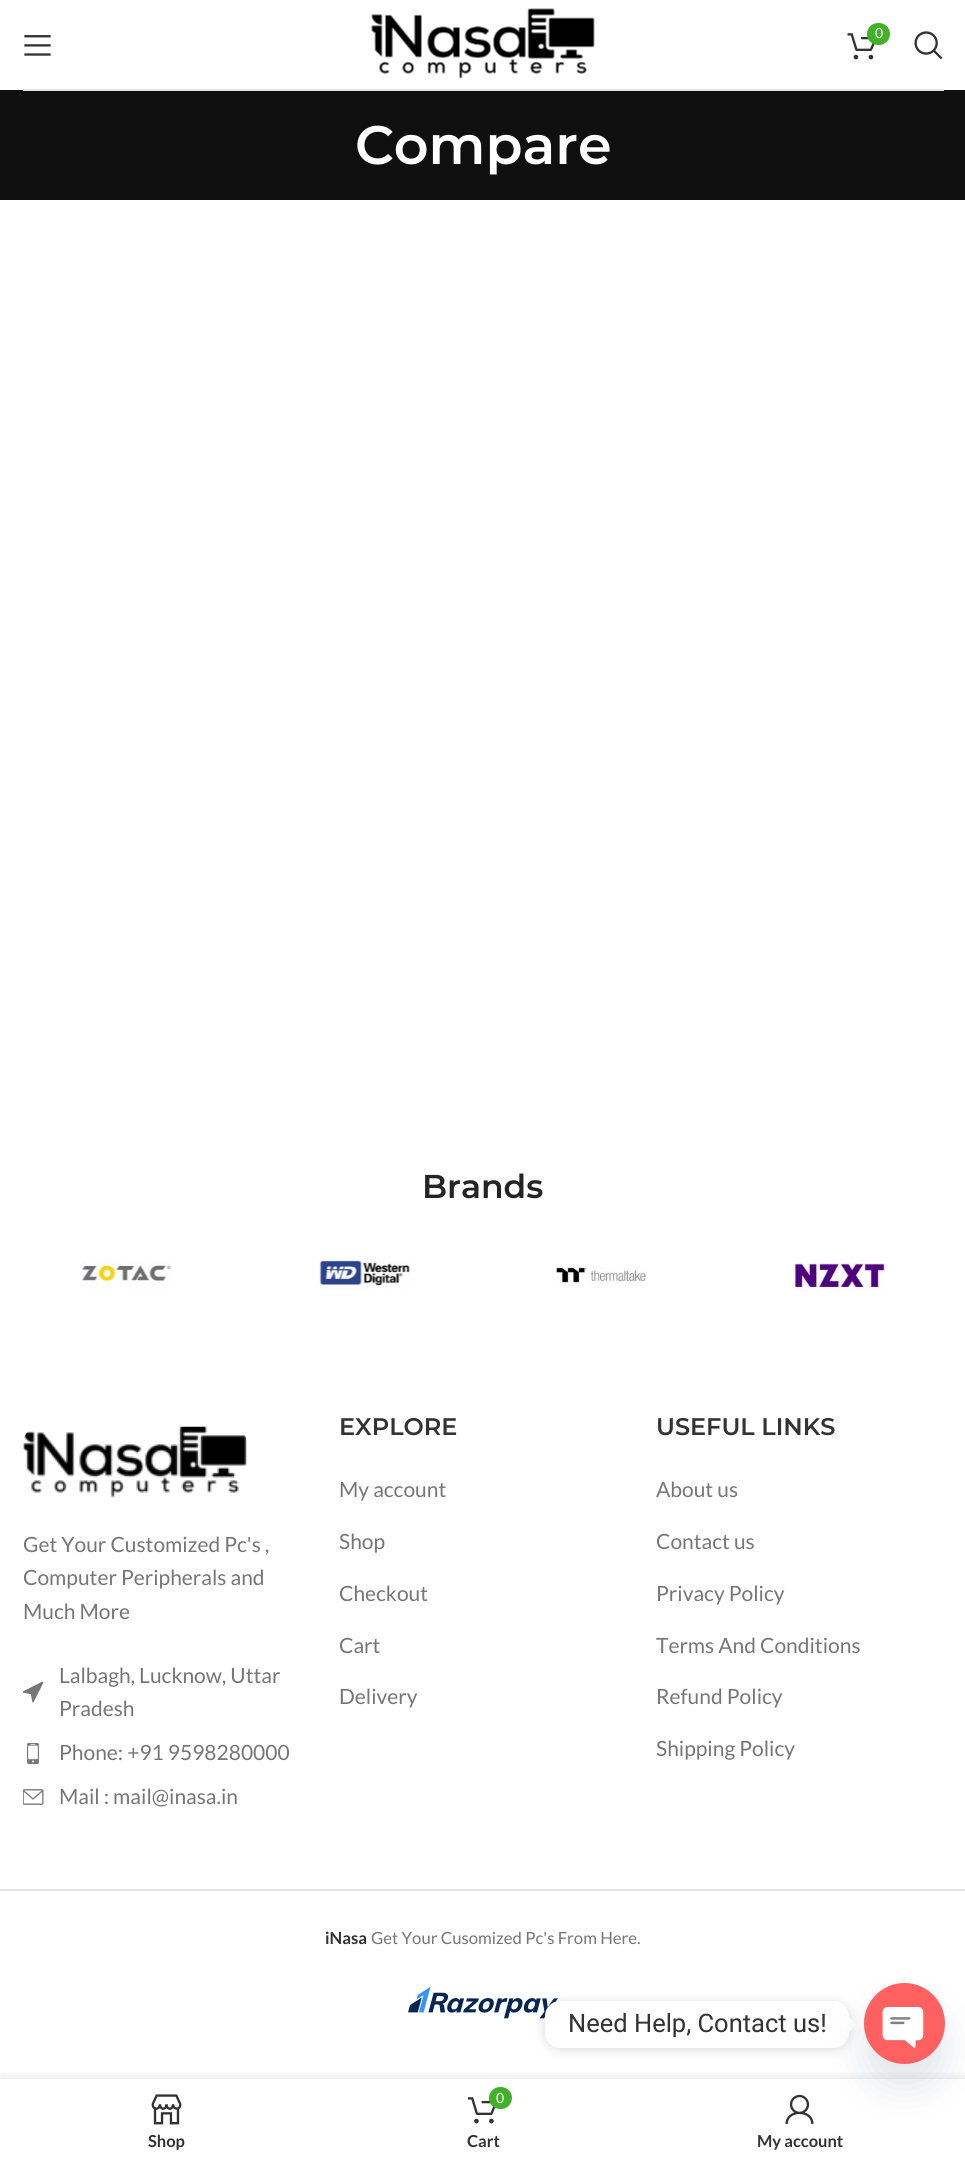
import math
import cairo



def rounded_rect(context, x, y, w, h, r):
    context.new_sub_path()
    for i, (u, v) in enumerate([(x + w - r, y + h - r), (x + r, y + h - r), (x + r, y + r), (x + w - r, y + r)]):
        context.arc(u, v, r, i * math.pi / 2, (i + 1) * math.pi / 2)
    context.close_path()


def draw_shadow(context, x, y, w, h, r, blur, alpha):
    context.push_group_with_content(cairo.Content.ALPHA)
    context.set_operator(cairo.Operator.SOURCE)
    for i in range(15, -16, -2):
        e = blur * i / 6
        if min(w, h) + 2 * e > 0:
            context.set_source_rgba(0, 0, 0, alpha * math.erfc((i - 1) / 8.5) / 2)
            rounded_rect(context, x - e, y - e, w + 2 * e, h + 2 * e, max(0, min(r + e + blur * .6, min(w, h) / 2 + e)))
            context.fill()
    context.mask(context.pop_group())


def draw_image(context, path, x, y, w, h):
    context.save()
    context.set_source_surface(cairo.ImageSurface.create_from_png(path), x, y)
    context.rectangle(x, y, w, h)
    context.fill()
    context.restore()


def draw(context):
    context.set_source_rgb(1, 1, 1)
    context.paint()
    context.set_source_rgb(15 / 255, 15 / 255, 15 / 255)
    context.rectangle(0, 90, 965, 110)
    context.fill()
    context.set_source_rgb(227 / 255, 227 / 255, 227 / 255)
    context.rectangle(23, 89, 921, 2)
    context.fill()
    draw_image(context, "images/1.png", 371, 8, 224, 71)
    draw_image(context, "images/2.png", 847, 33, 28, 27)
    context.set_source_rgb(67 / 255, 176 / 255, 42 / 255)
    rounded_rect(context, 867, 23, 23, 22, 11)
    context.fill()
    draw_image(context, "images/3.png", 914, 31, 29, 29)
    draw_image(context, "images/4.png", 24, 35, 27, 21)
    draw_image(context, "images/5.png", 82, 1257, 90, 34)
    draw_image(context, "images/6.png", 319, 1255, 91, 36)
    draw_image(context, "images/7.png", 556, 1267, 90, 18)
    draw_image(context, "images/8.png", 795, 1255, 90, 37)
    draw_image(context, "images/9.png", 22, 1426, 225, 72)
    draw_image(context, "images/10.png", 23, 1682, 21, 21)
    draw_image(context, "images/11.png", 27, 1743, 12, 21)
    draw_image(context, "images/12.png", 23, 1789, 21, 16)
    context.set_source_rgb(228 / 255, 228 / 255, 228 / 255)
    context.rectangle(0, 1889, 965, 2)
    context.fill()
    draw_image(context, "images/13.png", 408, 1986, 150, 33)
    context.set_source_rgb(0, 0, 0)
    draw_shadow(context, 545, 2003, 304, 46, 15, 6, 0.15)
    context.set_source_rgb(1, 1, 1)
    rounded_rect(context, 545, 2001, 304, 47, 15)
    context.fill()
    context.new_path()
    context.move_to(849, 2032)
    context.line_to(849, 2017)
    context.line_to(856.5, 2024)
    context.close_path()
    context.fill()
    context.save()
    context.rectangle(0, 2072, 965, 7)
    context.clip()
    context.set_source_rgb(0, 0, 0)
    draw_shadow(context, 0, 2079, 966, 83, 0, 7, 0.12)
    context.restore()
    draw_image(context, "images/17.png", 785, 2094, 29, 30)
    context.set_source_rgb(73 / 255, 104 / 255, 126 / 255)
    draw_shadow(context, 864, 2007, 81, 81, 40.5, 18, 0.16)
    draw_image(context, "images/14.png", 864, 1983, 81, 81)
    draw_image(context, "images/15.png", 151, 2094, 31, 31)
    draw_image(context, "images/16.png", 468, 2097, 28, 27)
    context.set_source_rgb(67 / 255, 176 / 255, 42 / 255)
    rounded_rect(context, 489, 2087, 23, 22, 11)
    context.fill()
    context.select_font_face("Lato")
    context.set_font_size(14)
    context.set_source_rgb(1, 1, 1)
    context.move_to(875, 38)
    context.show_text("0")
    context.select_font_face("Montserrat SemiBold")
    context.set_font_size(54)
    context.move_to(355, 164)
    context.show_text("Compare")
    context.set_font_size(33)
    context.set_source_rgb(36 / 255, 36 / 255, 36 / 255)
    context.move_to(422, 1198)
    context.show_text("Brands")
    context.select_font_face("Lato")
    context.set_font_size(21)
    context.set_source_rgb(118 / 255, 118 / 255, 118 / 255)
    context.move_to(23, 1552)
    context.show_text("Get Your Customized Pc's ,")
    context.move_to(23, 1585)
    context.show_text("Computer Peripherals and")
    context.move_to(23, 1619)
    context.show_text("Much More")
    context.move_to(59, 1683)
    context.show_text("Lalbagh, Lucknow, Uttar")
    context.move_to(59, 1716)
    context.show_text("Pradesh")
    context.move_to(59, 1760)
    context.show_text("Phone: +91 9598280000")
    context.move_to(59, 1804)
    context.show_text("Mail : mail@inasa.in")
    context.select_font_face("Montserrat SemiBold")
    context.set_font_size(24)
    context.set_source_rgb(51 / 255, 51 / 255, 51 / 255)
    context.move_to(339, 1435)
    context.show_text("EXPLORE")
    context.select_font_face("Lato")
    context.set_font_size(21)
    context.set_source_rgb(118 / 255, 118 / 255, 118 / 255)
    context.move_to(339, 1497)
    context.show_text("My account")
    context.move_to(339, 1549)
    context.show_text("Shop")
    context.move_to(339, 1601)
    context.show_text("Checkout")
    context.move_to(339, 1653)
    context.show_text("Cart")
    context.move_to(339, 1704)
    context.show_text("Delivery")
    context.select_font_face("Montserrat SemiBold")
    context.set_font_size(24)
    context.set_source_rgb(51 / 255, 51 / 255, 51 / 255)
    context.move_to(656, 1435)
    context.show_text("USEFUL LINKS")
    context.select_font_face("Lato")
    context.set_font_size(21)
    context.set_source_rgb(118 / 255, 118 / 255, 118 / 255)
    context.move_to(656, 1497)
    context.show_text("About us")
    context.move_to(656, 1549)
    context.show_text("Contact us")
    context.move_to(656, 1601)
    context.show_text("Privacy Policy")
    context.move_to(656, 1653)
    context.show_text("Terms And Conditions")
    context.move_to(656, 1704)
    context.show_text("Refund Policy")
    context.move_to(656, 1756)
    context.show_text("Shipping Policy")
    context.select_font_face("Lato", cairo.FontSlant.NORMAL, cairo.FontWeight.BOLD)
    context.set_font_size(16.75)
    context.set_source_rgb(51 / 255, 51 / 255, 51 / 255)
    context.move_to(325, 1944)
    context.show_text("iNasa")
    context.select_font_face("Lato")
    context.set_source_rgb(118 / 255, 118 / 255, 118 / 255)
    context.move_to(371, 1944)
    context.show_text("Get Your Cusomized Pc's From Here.")
    context.select_font_face("Roboto")
    context.set_font_size(25.5)
    context.set_source_rgb(51 / 255, 51 / 255, 51 / 255)
    context.move_to(568, 2032)
    context.show_text("Need Help, Contact us!")
    context.select_font_face("Lato", cairo.FontSlant.NORMAL, cairo.FontWeight.BOLD)
    context.set_font_size(16.5)
    context.move_to(148, 2147)
    context.show_text("Shop")
    context.select_font_face("Lato")
    context.set_font_size(14)
    context.set_source_rgb(1, 1, 1)
    context.move_to(496, 2103)
    context.show_text("0")
    context.select_font_face("Lato", cairo.FontSlant.NORMAL, cairo.FontWeight.BOLD)
    context.set_font_size(16.5)
    context.set_source_rgb(51 / 255, 51 / 255, 51 / 255)
    context.move_to(467, 2147)
    context.show_text("Cart")
    context.move_to(757, 2147)
    context.show_text("My account")


surface = cairo.ImageSurface(cairo.Format.RGB24, 965, 2161)
context = cairo.Context(surface)
options = cairo.FontOptions()
options.set_hint_metrics(cairo.HintMetrics.OFF)
options.set_hint_style(cairo.HintStyle.NONE)
context.set_font_options(options)
context.set_miter_limit(4)
draw(context)
surface.write_to_png("out.png")
